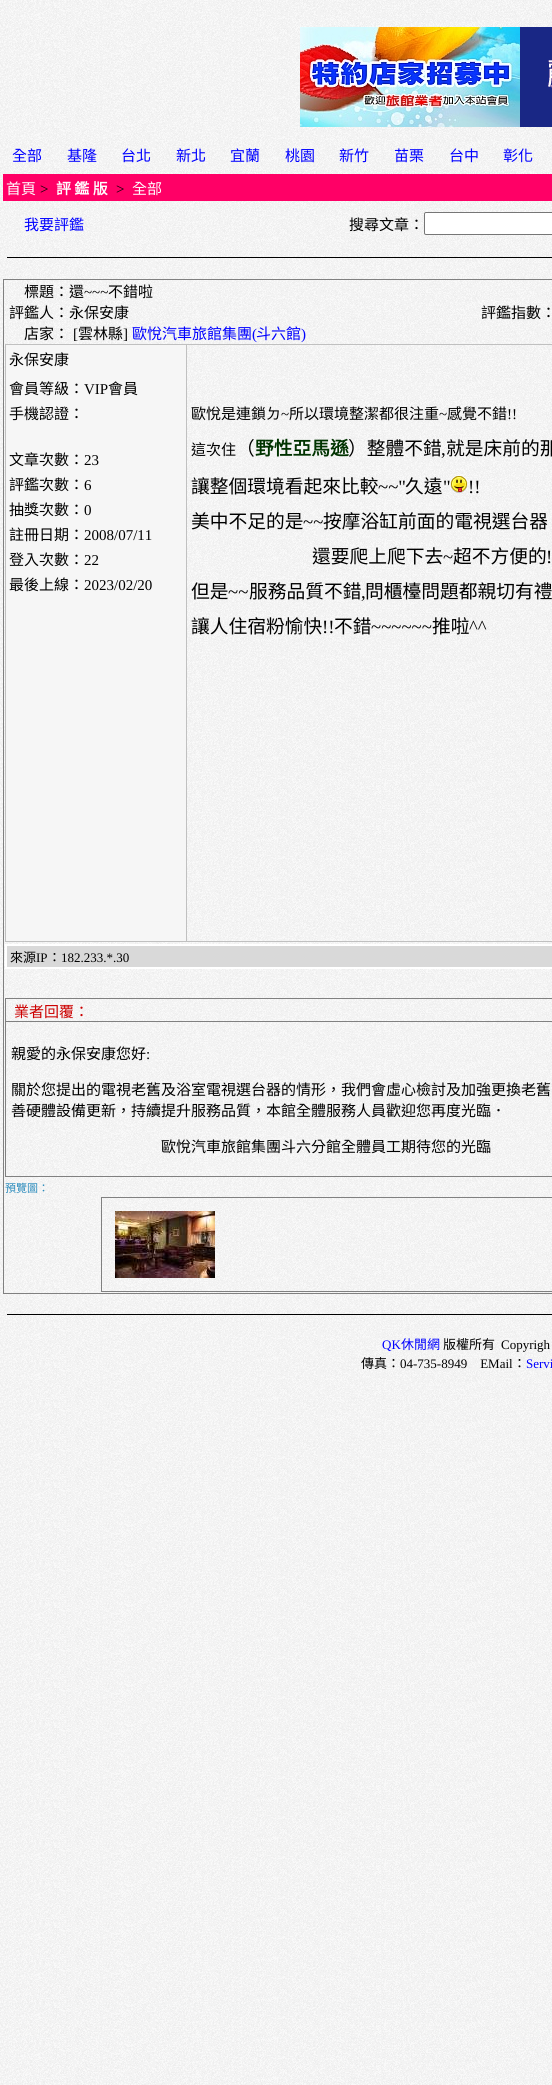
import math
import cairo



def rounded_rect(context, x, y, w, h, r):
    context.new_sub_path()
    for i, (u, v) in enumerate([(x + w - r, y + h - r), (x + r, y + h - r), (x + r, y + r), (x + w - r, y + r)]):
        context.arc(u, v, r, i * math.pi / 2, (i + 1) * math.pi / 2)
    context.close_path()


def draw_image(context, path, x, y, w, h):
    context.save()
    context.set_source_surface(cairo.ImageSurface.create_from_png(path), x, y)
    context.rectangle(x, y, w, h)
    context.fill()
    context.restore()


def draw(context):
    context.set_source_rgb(1, 1, 1)
    context.paint()
    draw_image(context, "images/1.png", 0, 0, 552, 2085)
    draw_image(context, "images/2.png", 300, 27, 220, 100)
    draw_image(context, "images/3.png", 520, 27, 32, 100)
    context.set_source_rgb(1, 0, 102 / 255)
    context.rectangle(3, 174, 549, 27)
    context.fill()
    context.set_source_rgb(1, 1, 1)
    rounded_rect(context, 424.5, 212.5, 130, 22, 1.5)
    context.fill_preserve()
    context.set_source_rgb(118 / 255, 118 / 255, 118 / 255)
    context.set_line_width(1)
    context.stroke()
    context.set_source_rgb(0, 0, 0)
    context.rectangle(7, 257, 545, 1)
    context.fill()
    context.set_source_rgb(128 / 255, 128 / 255, 128 / 255)
    context.rectangle(3, 279, 549, 1)
    context.fill()
    context.rectangle(3, 1293, 549, 1)
    context.fill()
    context.rectangle(3, 279, 1, 1015)
    context.fill()
    context.set_source_rgb(192 / 255, 192 / 255, 192 / 255)
    context.rectangle(5, 344, 547, 1)
    context.fill()
    context.rectangle(5, 941, 547, 1)
    context.fill()
    context.rectangle(5, 344, 1, 598)
    context.fill()
    context.set_source_rgb(246 / 255, 246 / 255, 246 / 255)
    context.rectangle(6, 345, 180, 596)
    context.fill()
    context.set_source_rgb(192 / 255, 192 / 255, 192 / 255)
    context.rectangle(186, 344, 1, 598)
    context.fill()
    draw_image(context, "images/4.png", 450, 475, 18, 18)
    context.set_source_rgb(217 / 255, 217 / 255, 217 / 255)
    context.rectangle(7, 946, 545, 21)
    context.fill()
    context.set_source_rgb(1, 1, 1)
    context.rectangle(5, 944, 547, 2)
    context.fill()
    context.rectangle(5, 967, 547, 2)
    context.fill()
    context.rectangle(5, 944, 2, 25)
    context.fill()
    context.set_source_rgb(128 / 255, 128 / 255, 128 / 255)
    context.rectangle(5, 998, 547, 1)
    context.fill()
    context.rectangle(5, 1176, 547, 1)
    context.fill()
    context.rectangle(5, 998, 1, 179)
    context.fill()
    context.rectangle(5, 1021, 547, 1)
    context.fill()
    context.rectangle(101, 1197, 451, 1)
    context.fill()
    context.rectangle(101, 1291, 451, 1)
    context.fill()
    context.rectangle(101, 1197, 1, 95)
    context.fill()
    draw_image(context, "images/5.png", 115, 1211, 100, 67)
    context.set_source_rgb(0, 0, 0)
    context.rectangle(7, 1314, 545, 1)
    context.fill()
    context.select_font_face("Noto Sans CJK TC")
    context.set_font_size(15)
    context.set_source_rgb(0, 0, 1)
    context.move_to(12, 161)
    context.show_text("全部")
    context.move_to(67, 161)
    context.show_text("基隆")
    context.move_to(121, 161)
    context.show_text("台北")
    context.move_to(176, 161)
    context.show_text("新北")
    context.move_to(230, 161)
    context.show_text("宜蘭")
    context.move_to(285, 161)
    context.show_text("桃園")
    context.move_to(339, 161)
    context.show_text("新竹")
    context.move_to(394, 161)
    context.show_text("苗栗")
    context.move_to(449, 161)
    context.show_text("台中")
    context.move_to(503, 161)
    context.show_text("彰化")
    context.set_source_rgb(1, 1, 1)
    context.move_to(6, 194)
    context.show_text("首頁")
    context.select_font_face("Liberation Serif")
    context.set_source_rgb(0, 0, 0)
    context.move_to(40, 194)
    context.show_text(">")
    context.select_font_face("Noto Sans CJK TC", cairo.FontSlant.NORMAL, cairo.FontWeight.BOLD)
    context.set_source_rgb(1, 1, 1)
    context.move_to(56, 194)
    context.show_text("評 鑑 版")
    context.select_font_face("Liberation Serif")
    context.set_source_rgb(0, 0, 0)
    context.move_to(116, 194)
    context.show_text(">")
    context.select_font_face("Noto Sans CJK TC")
    context.set_source_rgb(1, 1, 1)
    context.move_to(132, 194)
    context.show_text("全部")
    context.set_source_rgb(0, 0, 1)
    context.move_to(24, 230)
    context.show_text("我要評鑑")
    context.set_source_rgb(0, 0, 0)
    context.move_to(349, 230)
    context.show_text("搜尋文章：")
    context.move_to(24, 297)
    context.show_text("標題：還")
    context.select_font_face("Liberation Serif")
    context.move_to(84, 297)
    context.show_text("~~~")
    context.select_font_face("Noto Sans CJK TC")
    context.move_to(108, 297)
    context.show_text("不錯啦")
    context.move_to(9, 318)
    context.show_text("評鑑人：永保安康")
    context.move_to(481, 318)
    context.show_text("評鑑指數：")
    context.move_to(24, 339)
    context.show_text("店家：")
    context.select_font_face("Liberation Serif")
    context.move_to(73, 339)
    context.show_text("[")
    context.select_font_face("Noto Sans CJK TC")
    context.move_to(78, 339)
    context.show_text("雲林縣")
    context.select_font_face("Liberation Serif")
    context.move_to(123, 339)
    context.show_text("]")
    context.select_font_face("Noto Sans CJK TC")
    context.set_source_rgb(0, 0, 1)
    context.move_to(132, 339)
    context.show_text("歐悅汽車旅館集團")
    context.select_font_face("Liberation Serif")
    context.move_to(252, 339)
    context.show_text("(")
    context.select_font_face("Noto Sans CJK TC")
    context.move_to(256, 339)
    context.show_text("斗六館")
    context.select_font_face("Liberation Serif")
    context.move_to(301, 339)
    context.show_text(")")
    context.select_font_face("Noto Sans CJK TC")
    context.set_source_rgb(0, 0, 0)
    context.move_to(9, 365)
    context.show_text("永保安康")
    context.move_to(9, 394)
    context.show_text("會員等級：")
    context.select_font_face("Liberation Serif")
    context.move_to(84, 394)
    context.show_text("VIP")
    context.select_font_face("Noto Sans CJK TC")
    context.move_to(108, 394)
    context.show_text("會員")
    context.move_to(9, 419)
    context.show_text("手機認證：")
    context.move_to(9, 465)
    context.show_text("文章次數：")
    context.select_font_face("Liberation Serif")
    context.move_to(84, 465)
    context.show_text("23")
    context.select_font_face("Noto Sans CJK TC")
    context.move_to(9, 490)
    context.show_text("評鑑次數：")
    context.select_font_face("Liberation Serif")
    context.move_to(84, 490)
    context.show_text("6")
    context.select_font_face("Noto Sans CJK TC")
    context.move_to(9, 515)
    context.show_text("抽獎次數：")
    context.select_font_face("Liberation Serif")
    context.move_to(84, 515)
    context.show_text("0")
    context.select_font_face("Noto Sans CJK TC")
    context.move_to(9, 540)
    context.show_text("註冊日期：")
    context.select_font_face("Liberation Serif")
    context.move_to(84, 540)
    context.show_text("2008/07/11")
    context.select_font_face("Noto Sans CJK TC")
    context.move_to(9, 565)
    context.show_text("登入次數：")
    context.select_font_face("Liberation Serif")
    context.move_to(84, 565)
    context.show_text("22")
    context.select_font_face("Noto Sans CJK TC")
    context.move_to(9, 590)
    context.show_text("最後上線：")
    context.select_font_face("Liberation Serif")
    context.move_to(84, 590)
    context.show_text("2023/02/20")
    context.select_font_face("Noto Sans CJK TC")
    context.move_to(191, 419)
    context.show_text("歐悅是連鎖ㄉ")
    context.select_font_face("Liberation Serif")
    context.move_to(281, 419)
    context.show_text("~")
    context.select_font_face("Noto Sans CJK TC")
    context.move_to(289, 419)
    context.show_text("所以環境整潔都很注重")
    context.select_font_face("Liberation Serif")
    context.move_to(439, 419)
    context.show_text("~")
    context.select_font_face("Noto Sans CJK TC")
    context.move_to(447, 419)
    context.show_text("感覺不錯")
    context.select_font_face("Liberation Serif")
    context.move_to(507, 419)
    context.show_text("!!")
    context.select_font_face("Noto Sans CJK TC")
    context.move_to(191, 455)
    context.show_text("這次住")
    context.set_font_size(18.75)
    context.move_to(236, 455)
    context.show_text("（")
    context.select_font_face("Noto Sans CJK TC", cairo.FontSlant.NORMAL, cairo.FontWeight.BOLD)
    context.set_source_rgb(0, 51 / 255, 0)
    context.move_to(255, 455)
    context.show_text("野性亞馬遜")
    context.select_font_face("Noto Sans CJK TC")
    context.set_source_rgb(0, 0, 0)
    context.move_to(348, 455)
    context.show_text("）整體不錯")
    context.select_font_face("Liberation Serif")
    context.move_to(441, 455)
    context.show_text(",")
    context.select_font_face("Noto Sans CJK TC")
    context.move_to(446, 455)
    context.show_text("就是床前的那")
    context.move_to(191, 493)
    context.show_text("讓整個環境看起來比較")
    context.select_font_face("Liberation Serif")
    context.move_to(378, 493)
    context.show_text("~~\"")
    context.select_font_face("Noto Sans CJK TC")
    context.move_to(405, 493)
    context.show_text("久遠")
    context.select_font_face("Liberation Serif")
    context.move_to(443, 493)
    context.show_text("\"")
    context.move_to(468, 493)
    context.show_text("!!")
    context.select_font_face("Noto Sans CJK TC")
    context.move_to(191, 528)
    context.show_text("美中不足的是")
    context.select_font_face("Liberation Serif")
    context.move_to(303, 528)
    context.show_text("~~")
    context.select_font_face("Noto Sans CJK TC")
    context.move_to(323, 528)
    context.show_text("按摩浴缸前面的電視選台器")
    context.move_to(312, 563)
    context.show_text("還要爬上爬下去")
    context.select_font_face("Liberation Serif")
    context.move_to(443, 563)
    context.show_text("~")
    context.select_font_face("Noto Sans CJK TC")
    context.move_to(453, 563)
    context.show_text("超不方便的")
    context.select_font_face("Liberation Serif")
    context.move_to(546, 563)
    context.show_text("!")
    context.select_font_face("Noto Sans CJK TC")
    context.move_to(191, 598)
    context.show_text("但是")
    context.select_font_face("Liberation Serif")
    context.move_to(228, 598)
    context.show_text("~~")
    context.select_font_face("Noto Sans CJK TC")
    context.move_to(249, 598)
    context.show_text("服務品質不錯")
    context.move_to(365, 598)
    context.show_text("問櫃檯問題都親切有禮")
    context.select_font_face("Liberation Serif")
    context.move_to(361, 598)
    context.show_text(",")
    context.select_font_face("Noto Sans CJK TC")
    context.move_to(191, 633)
    context.show_text("讓人住宿粉愉快")
    context.select_font_face("Liberation Serif")
    context.move_to(322, 633)
    context.show_text("!!")
    context.select_font_face("Noto Sans CJK TC")
    context.move_to(334, 633)
    context.show_text("不錯")
    context.select_font_face("Liberation Serif")
    context.move_to(371, 633)
    context.show_text("~~~~~~")
    context.select_font_face("Noto Sans CJK TC")
    context.move_to(432, 633)
    context.show_text("推啦")
    context.select_font_face("Liberation Serif")
    context.move_to(469, 633)
    context.show_text("^^")
    context.select_font_face("Noto Sans CJK TC")
    context.set_font_size(13)
    context.move_to(10, 962)
    context.show_text("來源")
    context.select_font_face("Liberation Serif")
    context.move_to(36, 962)
    context.show_text("IP")
    context.select_font_face("Noto Sans CJK TC")
    context.move_to(48, 962)
    context.show_text("：")
    context.select_font_face("Liberation Serif")
    context.move_to(61, 962)
    context.show_text("182.233.*.30")
    context.select_font_face("Noto Sans CJK TC")
    context.set_font_size(15)
    context.set_source_rgb(204 / 255, 0, 0)
    context.move_to(14, 1017)
    context.show_text("業者回覆：")
    context.set_source_rgb(0, 0, 0)
    context.move_to(11, 1059)
    context.show_text("親愛的永保安康您好")
    context.select_font_face("Liberation Serif")
    context.move_to(146, 1059)
    context.show_text(":")
    context.select_font_face("Noto Sans CJK TC")
    context.move_to(11, 1095)
    context.show_text("關於您提出的電視老舊及浴室電視選台器的情形，我們會虛心檢討及加強更換老舊")
    context.move_to(11, 1116)
    context.show_text("善硬體設備更新，持續提升服務品質，本館全體服務人員歡迎您再度光臨．")
    context.move_to(161, 1152)
    context.show_text("歐悅汽車旅館集團斗六分館全體員工期待您的光臨")
    context.set_font_size(11)
    context.set_source_rgb(44 / 255, 140 / 255, 189 / 255)
    context.move_to(5, 1192)
    context.show_text("預覽圖：")
    context.select_font_face("Liberation Serif")
    context.set_font_size(13)
    context.set_source_rgb(0, 0, 1)
    context.move_to(382, 1349)
    context.show_text("QK")
    context.select_font_face("Noto Sans CJK TC")
    context.move_to(401, 1349)
    context.show_text("休閒網")
    context.set_source_rgb(0, 0, 0)
    context.move_to(443, 1349)
    context.show_text("版權所有")
    context.select_font_face("Liberation Serif")
    context.move_to(501, 1349)
    context.show_text("Copyrigh")
    context.select_font_face("Noto Sans CJK TC")
    context.move_to(361, 1368)
    context.show_text("傳真：")
    context.select_font_face("Liberation Serif")
    context.move_to(400, 1368)
    context.show_text("04-735-8949    EMail")
    context.select_font_face("Noto Sans CJK TC")
    context.move_to(513, 1368)
    context.show_text("：")
    context.select_font_face("Liberation Serif")
    context.set_source_rgb(0, 0, 1)
    context.move_to(526, 1368)
    context.show_text("Servi")


surface = cairo.ImageSurface(cairo.Format.RGB24, 552, 2085)
context = cairo.Context(surface)
options = cairo.FontOptions()
options.set_hint_metrics(cairo.HintMetrics.OFF)
options.set_hint_style(cairo.HintStyle.NONE)
context.set_font_options(options)
context.set_miter_limit(4)
draw(context)
surface.write_to_png("out.png")
